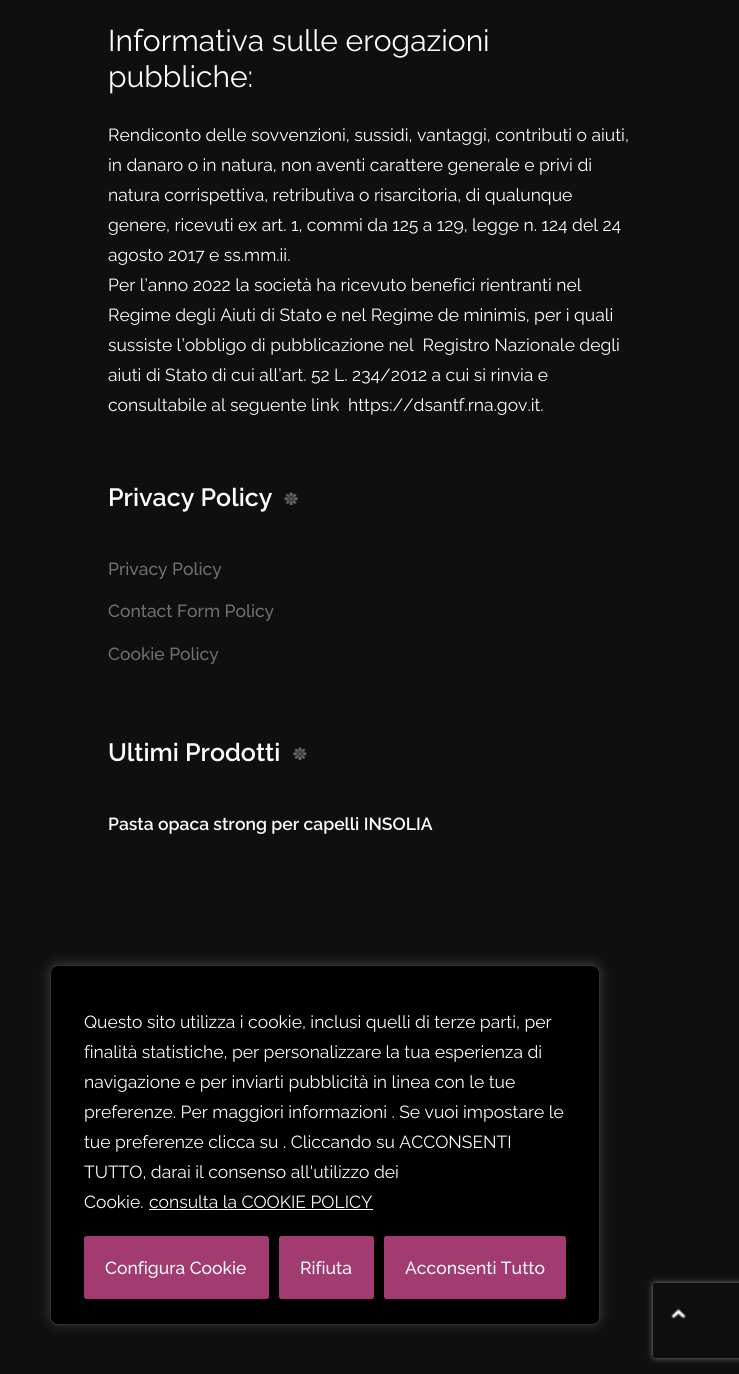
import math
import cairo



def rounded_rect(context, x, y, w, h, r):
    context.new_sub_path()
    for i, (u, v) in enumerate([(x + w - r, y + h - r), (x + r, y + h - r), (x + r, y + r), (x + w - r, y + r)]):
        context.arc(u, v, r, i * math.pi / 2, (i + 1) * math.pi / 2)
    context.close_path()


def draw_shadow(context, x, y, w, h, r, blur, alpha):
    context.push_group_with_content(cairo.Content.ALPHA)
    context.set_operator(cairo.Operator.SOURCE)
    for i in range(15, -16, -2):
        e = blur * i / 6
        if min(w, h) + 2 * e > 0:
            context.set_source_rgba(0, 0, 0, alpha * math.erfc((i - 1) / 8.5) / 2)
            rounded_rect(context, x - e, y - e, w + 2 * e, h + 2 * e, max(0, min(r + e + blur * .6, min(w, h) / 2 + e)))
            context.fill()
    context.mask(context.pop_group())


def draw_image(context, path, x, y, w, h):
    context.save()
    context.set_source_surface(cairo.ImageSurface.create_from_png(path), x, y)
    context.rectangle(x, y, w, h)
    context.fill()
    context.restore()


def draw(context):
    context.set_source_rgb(15 / 255, 15 / 255, 15 / 255)
    context.paint()
    draw_image(context, "images/1.png", 283, 492, 15, 13)
    draw_image(context, "images/2.png", 292, 747, 15, 13)
    context.set_source_rgb(172 / 255, 171 / 255, 171 / 255)
    draw_shadow(context, 50, 964, 550, 360, 8, 6, 0.3)
    context.set_source_rgb(0, 0, 0)
    rounded_rect(context, 50.5, 965.5, 549, 359, 7.5)
    context.fill_preserve()
    context.set_source_rgb(49 / 255, 49 / 255, 49 / 255)
    context.set_line_width(1)
    context.stroke()
    context.set_source_rgb(1, 1, 1)
    context.rectangle(149, 1209, 224, 1)
    context.fill()
    context.set_source_rgb(162 / 255, 59 / 255, 111 / 255)
    rounded_rect(context, 85.5, 1237.5, 182, 60, 1)
    context.fill_preserve()
    context.set_line_width(3)
    context.stroke()
    rounded_rect(context, 280.5, 1237.5, 92, 60, 1)
    context.fill_preserve()
    context.stroke()
    rounded_rect(context, 385.5, 1237.5, 179, 60, 1)
    context.fill_preserve()
    context.stroke()
    context.save()
    context.set_fill_rule(cairo.FillRule.EVEN_ODD)
    context.new_path()
    context.move_to(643, 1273)
    context.line_to(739, 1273)
    context.line_to(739, 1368)
    context.line_to(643, 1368)
    context.close_path()
    context.move_to(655.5, 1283)
    context.line_to(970.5, 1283)
    context.curve_to(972, 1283, 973, 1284, 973, 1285.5)
    context.line_to(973, 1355.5)
    context.curve_to(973, 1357, 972, 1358, 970.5, 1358)
    context.line_to(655.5, 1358)
    context.curve_to(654, 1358, 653, 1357, 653, 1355.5)
    context.line_to(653, 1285.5)
    context.curve_to(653, 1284, 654, 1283, 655.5, 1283)
    context.close_path()
    context.clip()
    context.set_source_rgb(128 / 255, 128 / 255, 128 / 255)
    draw_shadow(context, 653, 1283, 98, 75, 2.5, 3, 1)
    context.restore()
    draw_image(context, "images/3.png", 671, 1308, 15, 11)
    context.select_font_face("Raleway")
    context.set_font_size(30)
    context.set_source_rgb(252 / 255, 252 / 255, 252 / 255)
    context.move_to(108, 51)
    context.show_text("Informativa sulle erogazioni")
    context.move_to(108, 87)
    context.show_text("pubbliche:")
    context.set_font_size(17.5)
    context.move_to(108, 141)
    context.show_text("Rendiconto delle sovvenzioni, sussidi, vantaggi, contributi o aiuti,")
    context.move_to(108, 171)
    context.show_text("in danaro o in natura, non aventi carattere generale e privi di")
    context.move_to(108, 201)
    context.show_text("natura corrispettiva, retributiva o risarcitoria, di qualunque")
    context.move_to(108, 231)
    context.show_text("genere, ricevuti ex art. 1, commi da 125 a 129, legge n. 124 del 24")
    context.move_to(108, 261)
    context.show_text("agosto 2017 e ss.mm.ii.")
    context.move_to(108, 291)
    context.show_text("Per l’anno 2022 la società ha ricevuto benefici rientranti nel")
    context.move_to(108, 321)
    context.show_text("Regime degli Aiuti di Stato e nel Regime de minimis, per i quali")
    context.move_to(108, 351)
    context.show_text("sussiste l’obbligo di pubblicazione nel  Registro Nazionale degli")
    context.move_to(108, 381)
    context.show_text("aiuti di Stato di cui all’art. 52 L. 234/2012 a cui si rinvia e")
    context.move_to(108, 411)
    context.show_text("consultabile al seguente link")
    context.move_to(348, 411)
    context.show_text("https://dsantf.rna.gov.it.")
    context.select_font_face("Raleway SemiBold")
    context.set_font_size(25)
    context.move_to(108, 506)
    context.show_text("Privacy Policy")
    context.select_font_face("Raleway Medium")
    context.set_font_size(17.5)
    context.set_source_rgb(112 / 255, 112 / 255, 112 / 255)
    context.move_to(108, 575)
    context.show_text("Privacy Policy")
    context.move_to(108, 617)
    context.show_text("Contact Form Policy")
    context.move_to(108, 660)
    context.show_text("Cookie Policy")
    context.select_font_face("Raleway SemiBold")
    context.set_font_size(25)
    context.set_source_rgb(252 / 255, 252 / 255, 252 / 255)
    context.move_to(108, 761)
    context.show_text("Ultimi Prodotti")
    context.set_font_size(17.5)
    context.move_to(108, 830)
    context.show_text("Pasta opaca strong per capelli INSOLIA")
    context.select_font_face("Raleway")
    context.move_to(84, 1028)
    context.show_text("Questo sito utilizza i cookie, inclusi quelli di terze parti, per")
    context.move_to(84, 1058)
    context.show_text("finalità statistiche, per personalizzare la tua esperienza di")
    context.move_to(84, 1088)
    context.show_text("navigazione e per inviarti pubblicità in linea con le tue")
    context.move_to(84, 1118)
    context.show_text("preferenze. Per maggiori informazioni . Se vuoi impostare le")
    context.move_to(84, 1148)
    context.show_text("tue preferenze clicca su . Cliccando su ACCONSENTI")
    context.move_to(84, 1178)
    context.show_text("TUTTO, darai il consenso all'utilizzo dei")
    context.move_to(84, 1208)
    context.show_text("Cookie.")
    context.move_to(149, 1208)
    context.show_text("consulta la COOKIE POLICY")
    context.select_font_face("Raleway Medium")
    context.move_to(105, 1274)
    context.show_text("Configura Cookie")
    context.move_to(300, 1274)
    context.show_text("Rifiuta")
    context.move_to(405, 1274)
    context.show_text("Acconsenti Tutto")


surface = cairo.ImageSurface(cairo.Format.RGB24, 739, 1374)
context = cairo.Context(surface)
options = cairo.FontOptions()
options.set_hint_metrics(cairo.HintMetrics.OFF)
options.set_hint_style(cairo.HintStyle.NONE)
context.set_font_options(options)
context.set_miter_limit(4)
draw(context)
surface.write_to_png("out.png")
